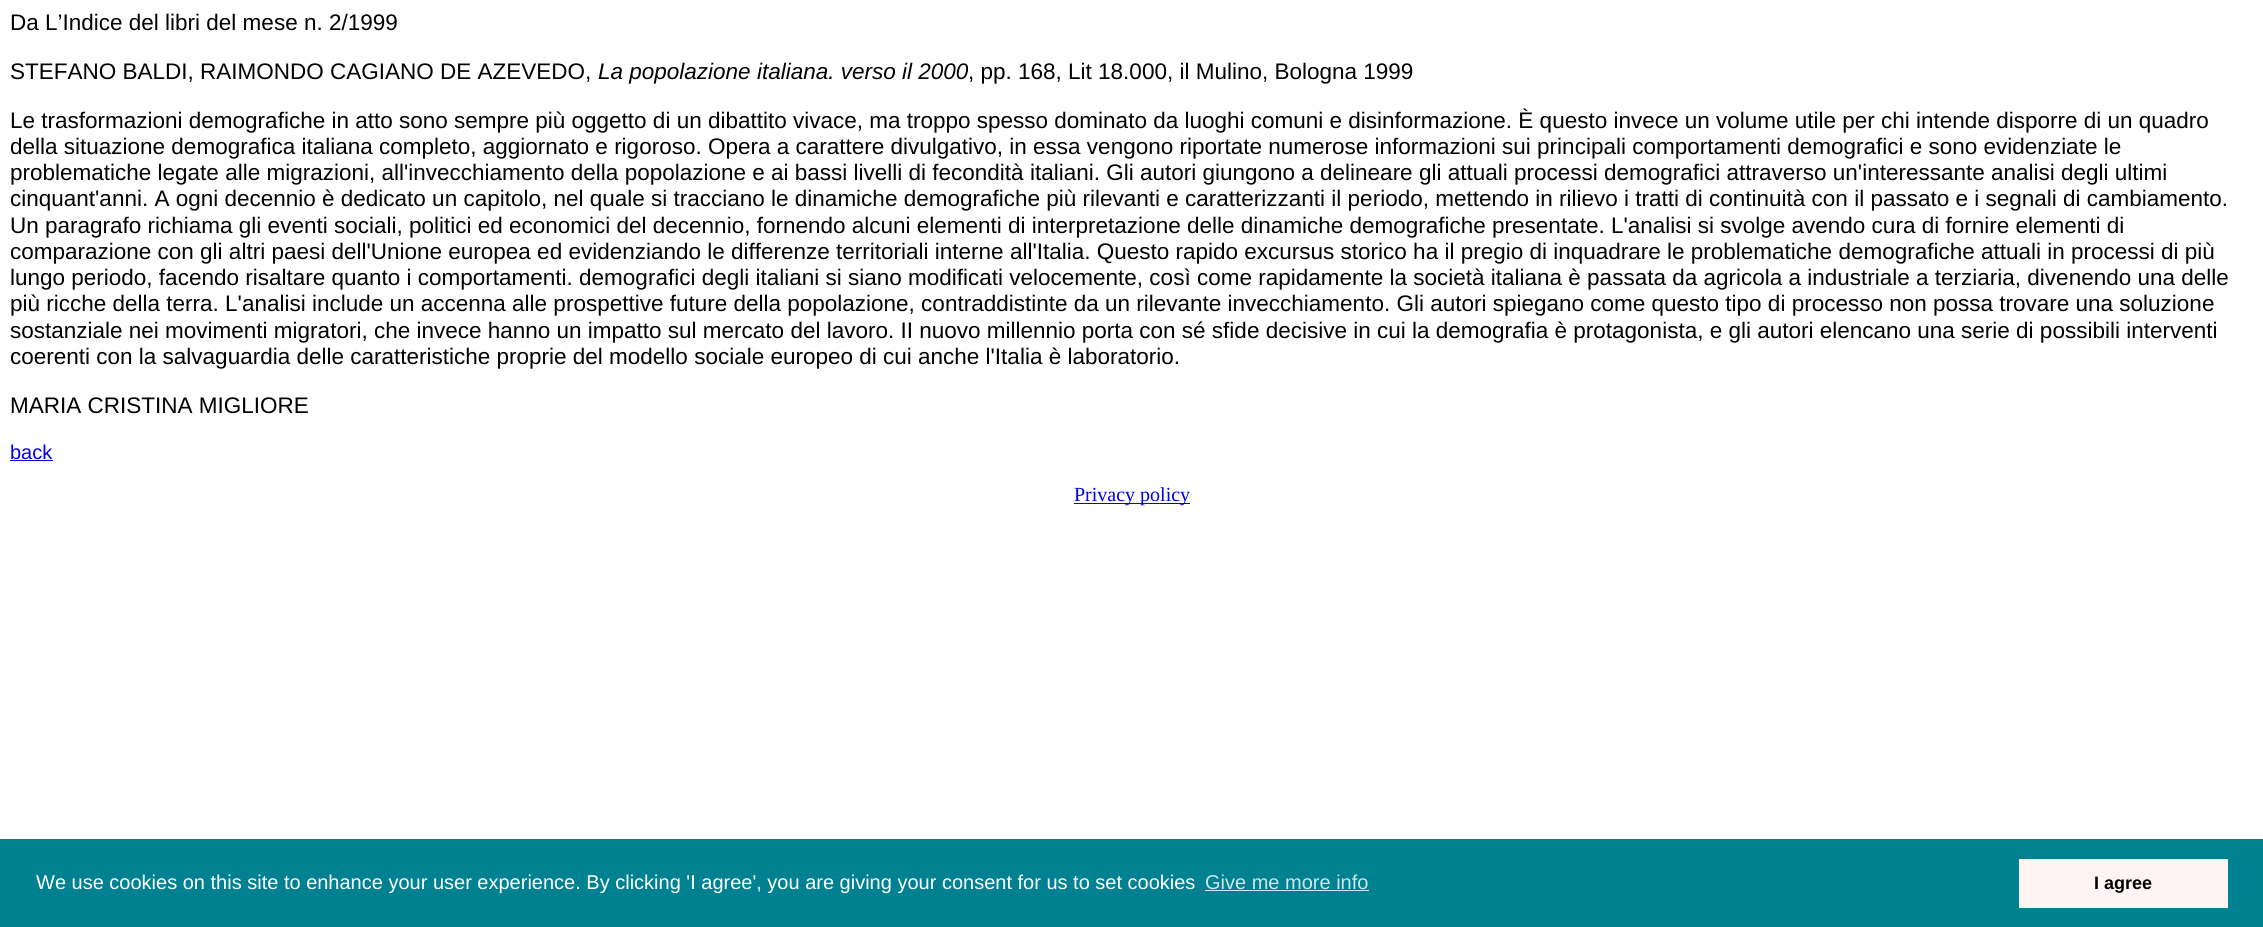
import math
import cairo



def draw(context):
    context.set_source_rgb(1, 1, 1)
    context.paint()
    context.set_source_rgb(0, 0, 238 / 255)
    context.rectangle(10, 460, 43, 1)
    context.fill()
    context.rectangle(1074, 503, 116, 1)
    context.fill()
    context.set_source_rgb(0, 129 / 255, 145 / 255)
    context.rectangle(0, 839, 2263, 88)
    context.fill()
    context.set_source_rgb(204 / 255, 230 / 255, 233 / 255)
    context.rectangle(1205, 890, 164, 1)
    context.fill()
    context.set_source_rgb(1, 244 / 255, 244 / 255)
    context.rectangle(2019, 859, 209, 49)
    context.fill()
    context.select_font_face("Liberation Sans")
    context.set_font_size(22.5)
    context.set_source_rgb(0, 0, 0)
    context.move_to(10, 30)
    context.show_text("Da L’Indice del libri del mese n. 2/1999")
    context.move_to(10, 79)
    context.show_text("STEFANO BALDI, RAIMONDO CAGIANO DE AZEVEDO,")
    context.select_font_face("Liberation Sans", cairo.FontSlant.ITALIC)
    context.move_to(598, 79)
    context.show_text("La popolazione italiana. verso il 2000")
    context.select_font_face("Liberation Sans")
    context.move_to(968, 79)
    context.show_text(", pp. 168, Lit 18.000, il Mulino, Bologna 1999")
    context.move_to(10, 128)
    context.show_text("Le trasformazioni demografiche in atto sono sempre più oggetto di un dibattito vivace, ma troppo spesso dominato da luoghi comuni e disinformazione. È questo invece un volume utile per chi intende disporre di un quadro")
    context.move_to(10, 154)
    context.show_text("della situazione demografica italiana completo, aggiornato e rigoroso. Opera a carattere divulgativo, in essa vengono riportate numerose informazioni sui principali comportamenti demografici e sono evidenziate le")
    context.move_to(10, 180)
    context.show_text("problematiche legate alle migrazioni, all'invecchiamento della popolazione e ai bassi livelli di fecondità italiani. Gli autori giungono a delineare gli attuali processi demografici attraverso un'interessante analisi degli ultimi")
    context.move_to(10, 206)
    context.show_text("cinquant'anni. A ogni decennio è dedicato un capitolo, nel quale si tracciano le dinamiche demografiche più rilevanti e caratterizzanti il periodo, mettendo in rilievo i tratti di continuità con il passato e i segnali di cambiamento.")
    context.move_to(10, 233)
    context.show_text("Un paragrafo richiama gli eventi sociali, politici ed economici del decennio, fornendo alcuni elementi di interpretazione delle dinamiche demografiche presentate. L'analisi si svolge avendo cura di fornire elementi di")
    context.move_to(10, 259)
    context.show_text("comparazione con gli altri paesi dell'Unione europea ed evidenziando le differenze territoriali interne all'Italia. Questo rapido excursus storico ha il pregio di inquadrare le problematiche demografiche attuali in processi di più")
    context.move_to(10, 285)
    context.show_text("lungo periodo, facendo risaltare quanto i comportamenti. demografici degli italiani si siano modificati velocemente, così come rapidamente la società italiana è passata da agricola a industriale a terziaria, divenendo una delle")
    context.move_to(10, 311)
    context.show_text("più ricche della terra. L'analisi include un accenna alle prospettive future della popolazione, contraddistinte da un rilevante invecchiamento. Gli autori spiegano come questo tipo di processo non possa trovare una soluzione")
    context.move_to(10, 338)
    context.show_text("sostanziale nei movimenti migratori, che invece hanno un impatto sul mercato del lavoro. II nuovo millennio porta con sé sfide decisive in cui la demografia è protagonista, e gli autori elencano una serie di possibili interventi")
    context.move_to(10, 364)
    context.show_text("coerenti con la salvaguardia delle caratteristiche proprie del modello sociale europeo di cui anche l'Italia è laboratorio.")
    context.move_to(10, 413)
    context.show_text("MARIA CRISTINA MIGLIORE")
    context.set_font_size(20)
    context.set_source_rgb(0, 0, 238 / 255)
    context.move_to(10, 459)
    context.show_text("back")
    context.select_font_face("Liberation Serif")
    context.move_to(1074, 501)
    context.show_text("Privacy policy")
    context.select_font_face("Liberation Sans")
    context.set_source_rgb(1, 1, 1)
    context.move_to(36, 889)
    context.show_text("We use cookies on this site to enhance your user experience. By clicking 'I agree', you are giving your consent for us to set cookies")
    context.set_source_rgb(204 / 255, 230 / 255, 233 / 255)
    context.move_to(1205, 889)
    context.show_text("Give me more info")
    context.select_font_face("Liberation Sans", cairo.FontSlant.NORMAL, cairo.FontWeight.BOLD)
    context.set_font_size(18)
    context.set_source_rgb(0, 0, 0)
    context.move_to(2094, 889)
    context.show_text("I agree")


surface = cairo.ImageSurface(cairo.Format.RGB24, 2263, 927)
context = cairo.Context(surface)
options = cairo.FontOptions()
options.set_hint_metrics(cairo.HintMetrics.OFF)
options.set_hint_style(cairo.HintStyle.NONE)
context.set_font_options(options)
context.set_miter_limit(4)
draw(context)
surface.write_to_png("out.png")
